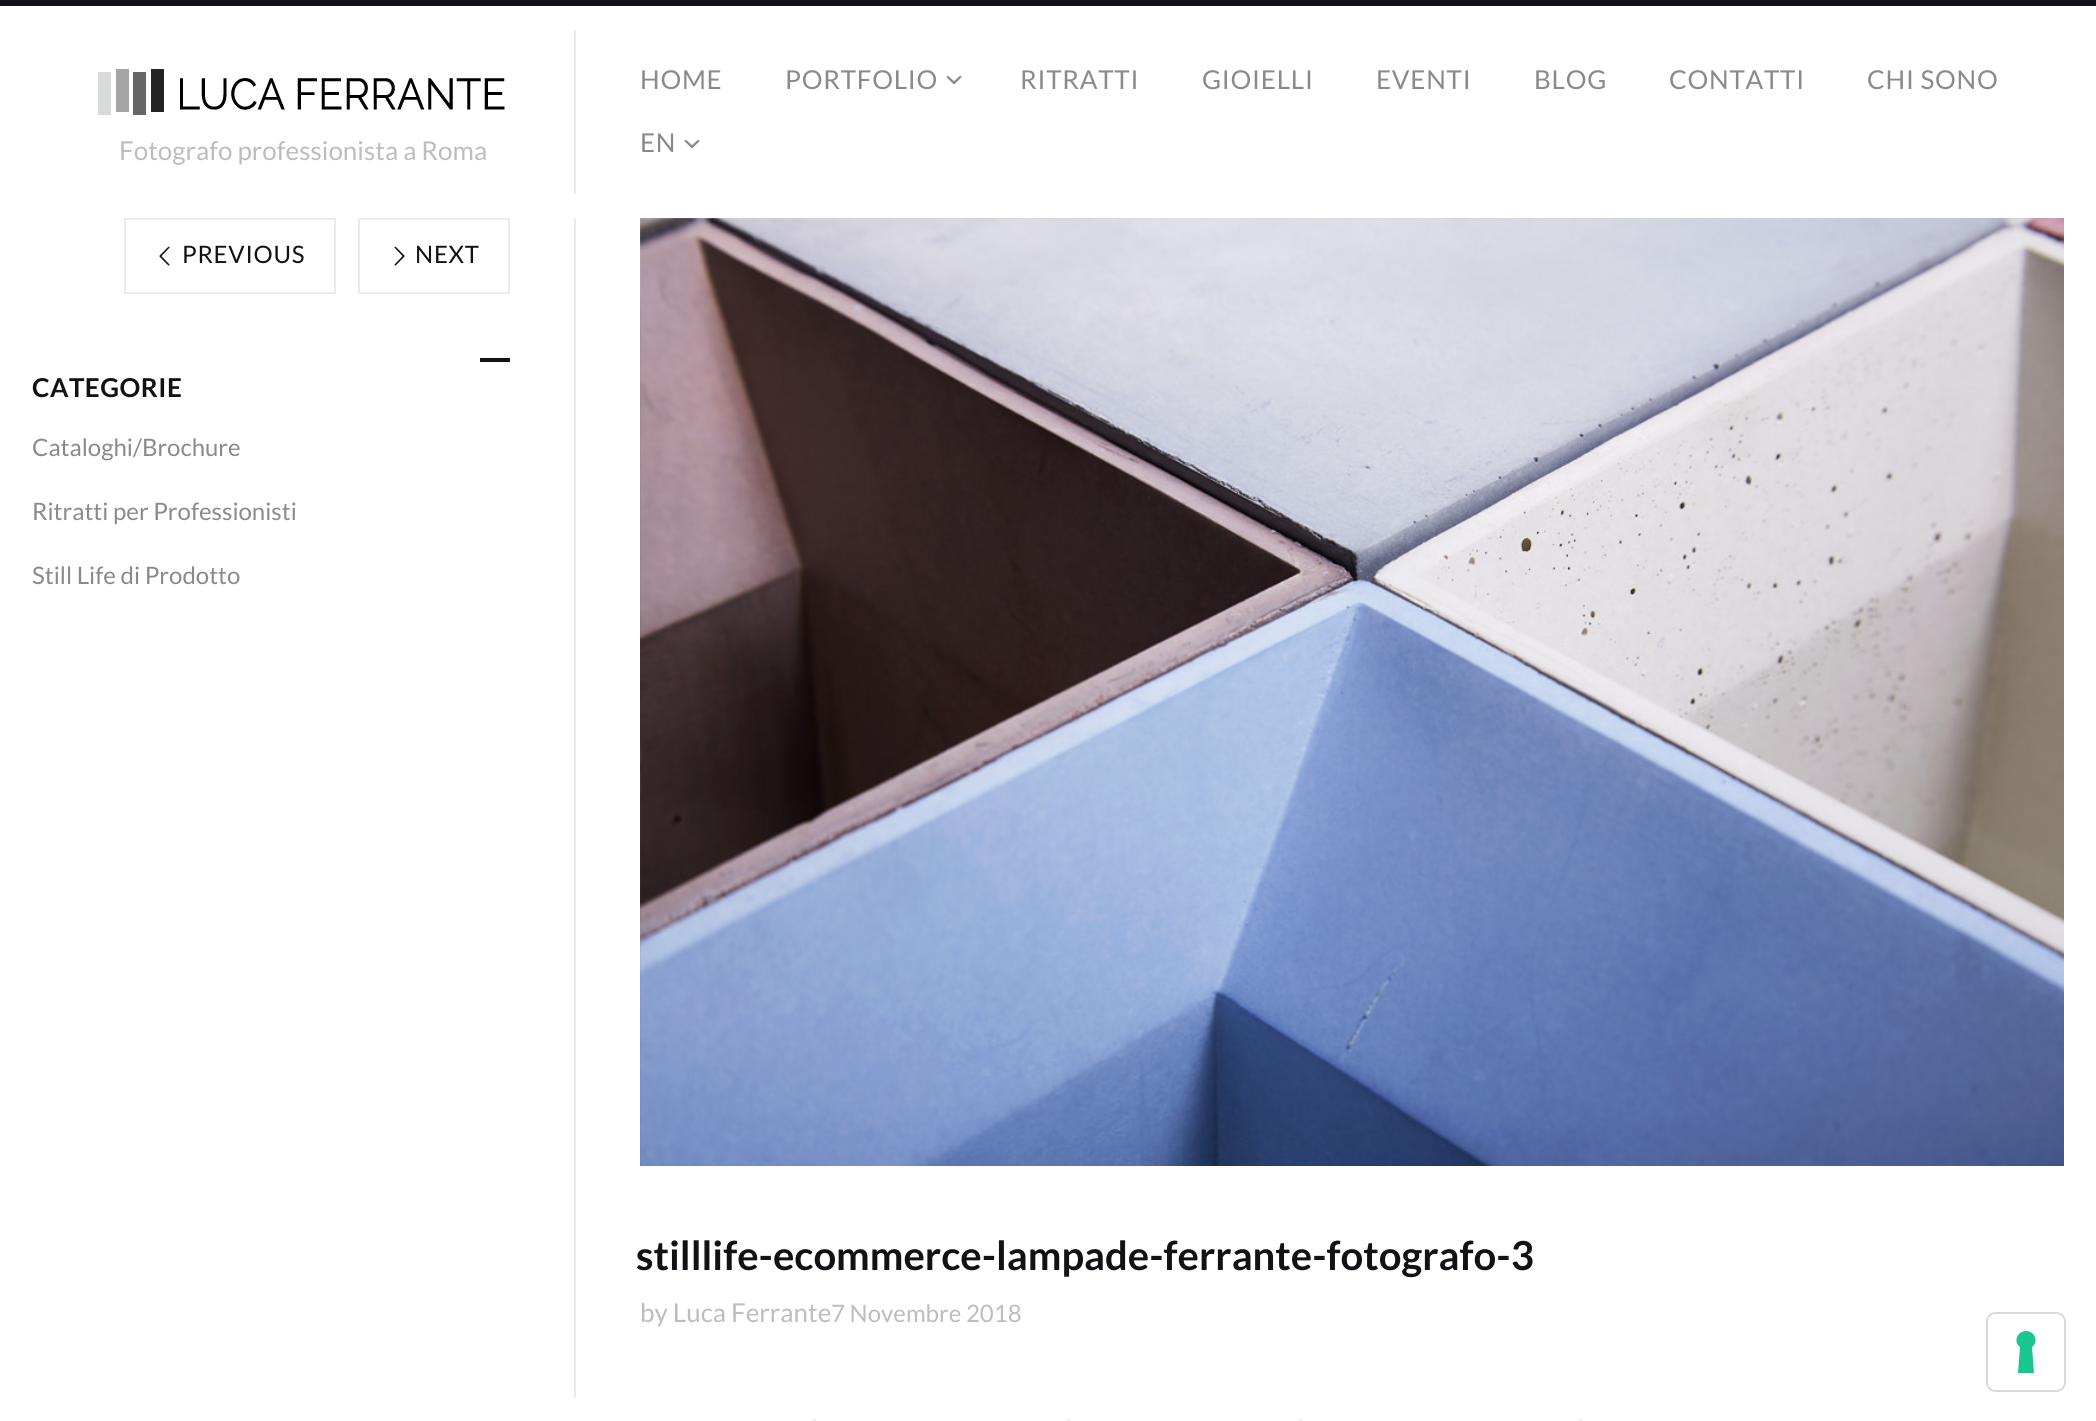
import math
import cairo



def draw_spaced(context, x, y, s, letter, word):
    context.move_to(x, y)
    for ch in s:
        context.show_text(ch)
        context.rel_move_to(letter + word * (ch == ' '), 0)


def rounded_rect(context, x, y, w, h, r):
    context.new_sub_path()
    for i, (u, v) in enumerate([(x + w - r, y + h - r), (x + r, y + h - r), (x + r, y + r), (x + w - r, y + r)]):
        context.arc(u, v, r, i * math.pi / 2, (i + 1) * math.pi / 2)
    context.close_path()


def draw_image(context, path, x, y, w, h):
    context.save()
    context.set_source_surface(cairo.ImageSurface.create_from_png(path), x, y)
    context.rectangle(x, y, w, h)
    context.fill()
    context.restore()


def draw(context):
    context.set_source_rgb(1, 1, 1)
    context.paint()
    context.set_source_rgb(17 / 255, 17 / 255, 22 / 255)
    context.rectangle(0, 0, 2096, 6)
    context.fill()
    context.set_source_rgb(235 / 255, 235 / 255, 235 / 255)
    context.rectangle(574, 30, 2, 164)
    context.fill()
    draw_image(context, "images/1.png", 98, 69, 407, 46)
    draw_image(context, "images/2.png", 946, 75, 16, 10)
    draw_image(context, "images/2.png", 684, 139, 16, 10)
    context.rectangle(574, 218, 2, 1180)
    context.fill()
    context.rectangle(125, 219, 210, 74)
    context.stroke()
    draw_image(context, "images/3.png", 159, 246, 11, 20)
    context.rectangle(359, 219, 150, 74)
    context.stroke()
    draw_image(context, "images/4.png", 394, 246, 11, 20)
    context.set_source_rgb(17 / 255, 17 / 255, 22 / 255)
    context.rectangle(480, 358, 30, 4)
    context.fill()
    draw_image(context, "images/5.png", 640, 218, 1424, 948)
    rounded_rect(context, 1987, 1313, 78, 78, 9)
    context.set_source_rgb(217 / 255, 217 / 255, 217 / 255)
    context.stroke()
    context.set_source_rgb(1, 1, 1)
    rounded_rect(context, 1988, 1314, 76, 76, 8)
    context.fill()
    context.set_source_rgb(28 / 255, 198 / 255, 145 / 255)
    context.set_fill_rule(cairo.FillRule.EVEN_ODD)
    context.new_path()
    context.move_to(2026, 1331)
    context.curve_to(2035, 1331, 2039, 1342, 2032, 1347)
    context.line_to(2034, 1373)
    context.line_to(2018, 1373)
    context.line_to(2020, 1347)
    context.curve_to(2013, 1342, 2017, 1331, 2026, 1331)
    context.close_path()
    context.fill()
    draw_image(context, "images/6.png", 812, 1419, 4, 2)
    draw_image(context, "images/6.png", 1066, 1419, 4, 2)
    draw_image(context, "images/6.png", 1298, 1419, 4, 2)
    draw_image(context, "images/6.png", 1578, 1419, 4, 2)
    context.select_font_face("Lato")
    context.set_font_size(26)
    context.set_source_rgb(189 / 255, 189 / 255, 189 / 255)
    context.move_to(119, 160)
    context.show_text("Fotografo professionista a Roma")
    context.set_source_rgb(138 / 255, 138 / 255, 138 / 255)
    draw_spaced(context, 640, 89, "HOME", 0.75, 0)
    draw_spaced(context, 785, 89, "PORTFOLIO", 0.75, 0)
    draw_spaced(context, 1020, 89, "RITRATTI", 0.75, 0)
    draw_spaced(context, 1202, 89, "GIOIELLI", 0.75, 0)
    draw_spaced(context, 1376, 89, "EVENTI", 0.75, 0)
    draw_spaced(context, 1534, 89, "BLOG", 0.75, 0)
    draw_spaced(context, 1669, 89, "CONTATTI", 0.75, 0)
    draw_spaced(context, 1867, 89, "CHI SONO", 0.75, 0)
    draw_spaced(context, 640, 152, "EN", 0.75, 0)
    context.set_font_size(24)
    context.set_source_rgb(17 / 255, 17 / 255, 22 / 255)
    draw_spaced(context, 182, 263, "PREVIOUS", 0.75, 0)
    draw_spaced(context, 415, 263, "NEXT", 0.75, 0)
    context.select_font_face("Lato", cairo.FontSlant.NORMAL, cairo.FontWeight.BOLD)
    context.set_font_size(26)
    draw_spaced(context, 32, 397, "CATEGORIE", 0.5, 0)
    context.select_font_face("Lato")
    context.set_font_size(24)
    context.set_source_rgb(138 / 255, 138 / 255, 138 / 255)
    context.move_to(32, 456)
    context.show_text("Cataloghi/Brochure")
    context.move_to(32, 520)
    context.show_text("Ritratti per Professionisti")
    context.move_to(32, 584)
    context.show_text("Still Life di Prodotto")
    context.select_font_face("Lato", cairo.FontSlant.NORMAL, cairo.FontWeight.BOLD)
    context.set_font_size(40)
    context.set_source_rgb(17 / 255, 17 / 255, 22 / 255)
    context.move_to(636, 1270)
    context.show_text("stilllife-ecommerce-lampade-ferrante-fotografo-3")
    context.select_font_face("Lato")
    context.set_font_size(26)
    context.set_source_rgb(189 / 255, 189 / 255, 189 / 255)
    context.move_to(640, 1322)
    context.show_text("by Luca Ferrante")
    context.set_font_size(24)
    context.move_to(831, 1322)
    context.show_text("7 Novembre 2018")


surface = cairo.ImageSurface(cairo.Format.RGB24, 2096, 1421)
context = cairo.Context(surface)
options = cairo.FontOptions()
options.set_hint_metrics(cairo.HintMetrics.OFF)
options.set_hint_style(cairo.HintStyle.NONE)
context.set_font_options(options)
context.set_miter_limit(4)
draw(context)
surface.write_to_png("out.png")
